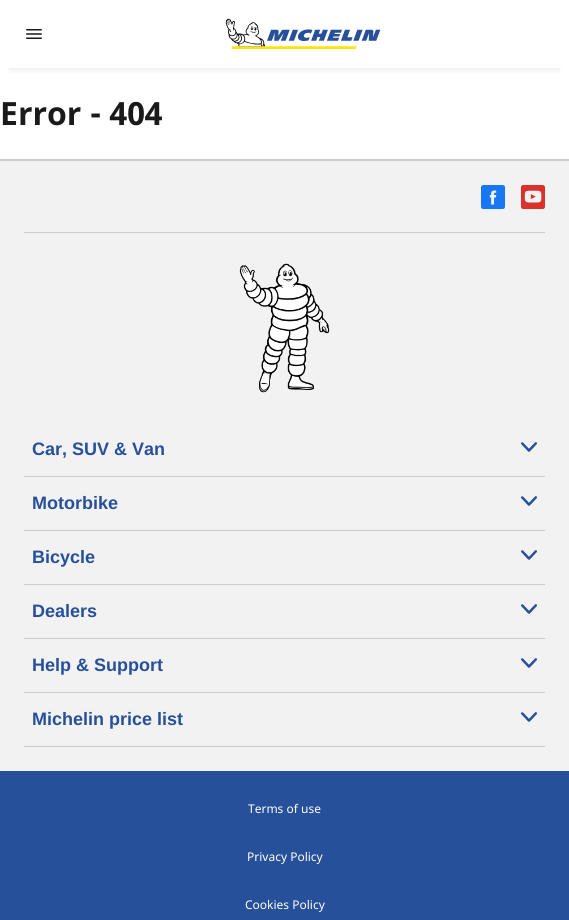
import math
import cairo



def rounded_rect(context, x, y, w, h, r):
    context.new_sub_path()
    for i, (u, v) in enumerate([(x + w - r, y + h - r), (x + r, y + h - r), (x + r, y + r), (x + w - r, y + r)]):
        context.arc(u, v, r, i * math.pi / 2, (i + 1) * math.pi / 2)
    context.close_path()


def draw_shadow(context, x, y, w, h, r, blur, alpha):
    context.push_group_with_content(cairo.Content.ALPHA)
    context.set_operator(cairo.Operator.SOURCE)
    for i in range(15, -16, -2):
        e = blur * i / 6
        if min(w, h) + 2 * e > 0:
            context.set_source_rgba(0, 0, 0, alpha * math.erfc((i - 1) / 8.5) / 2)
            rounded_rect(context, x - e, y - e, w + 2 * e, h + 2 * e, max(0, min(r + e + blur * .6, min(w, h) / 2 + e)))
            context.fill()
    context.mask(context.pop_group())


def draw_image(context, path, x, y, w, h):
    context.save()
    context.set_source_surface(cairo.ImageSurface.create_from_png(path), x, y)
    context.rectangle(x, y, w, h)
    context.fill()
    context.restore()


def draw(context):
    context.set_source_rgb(1, 1, 1)
    context.paint()
    context.save()
    context.rectangle(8, 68, 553, 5)
    context.clip()
    context.set_source_rgb(51 / 255, 51 / 255, 51 / 255)
    draw_shadow(context, 10, 21, 549, 48, 0, 4, 0.12)
    context.restore()
    draw_image(context, "images/1.png", 26, 29, 16, 10)
    draw_image(context, "images/2.png", 225, 18, 156, 31)
    context.set_source_rgb(242 / 255, 242 / 255, 242 / 255)
    context.rectangle(0, 161, 569, 610)
    context.fill()
    context.set_source_rgb(204 / 255, 204 / 255, 204 / 255)
    context.rectangle(0, 159, 569, 2)
    context.fill()
    draw_image(context, "images/3.png", 481, 185, 24, 24)
    draw_image(context, "images/4.png", 521, 185, 24, 24)
    context.rectangle(24, 232, 521, 1)
    context.fill()
    draw_image(context, "images/5.png", 239, 263, 91, 130)
    context.rectangle(24, 476, 521, 1)
    context.fill()
    draw_image(context, "images/6.png", 521, 442, 16, 10)
    context.rectangle(24, 530, 521, 1)
    context.fill()
    draw_image(context, "images/6.png", 521, 496, 16, 10)
    context.rectangle(24, 584, 521, 1)
    context.fill()
    draw_image(context, "images/6.png", 521, 550, 16, 10)
    context.rectangle(24, 638, 521, 1)
    context.fill()
    draw_image(context, "images/6.png", 521, 604, 16, 10)
    context.rectangle(24, 692, 521, 1)
    context.fill()
    draw_image(context, "images/6.png", 521, 658, 16, 10)
    context.rectangle(24, 746, 521, 1)
    context.fill()
    draw_image(context, "images/6.png", 521, 712, 16, 10)
    context.set_source_rgb(39 / 255, 80 / 255, 155 / 255)
    context.rectangle(0, 771, 569, 149)
    context.fill()
    context.select_font_face("Noto Sans", cairo.FontSlant.NORMAL, cairo.FontWeight.BOLD)
    context.set_font_size(32)
    context.set_source_rgb(26 / 255, 26 / 255, 26 / 255)
    context.move_to(0, 125)
    context.show_text("Error - 404")
    context.select_font_face("Liberation Sans", cairo.FontSlant.NORMAL, cairo.FontWeight.BOLD)
    context.set_font_size(18)
    context.set_source_rgb(39 / 255, 80 / 255, 155 / 255)
    context.move_to(32, 455)
    context.show_text("Car, SUV & Van")
    context.move_to(32, 509)
    context.show_text("Motorbike")
    context.move_to(32, 563)
    context.show_text("Bicycle")
    context.move_to(32, 617)
    context.show_text("Dealers")
    context.move_to(32, 671)
    context.show_text("Help & Support")
    context.move_to(32, 725)
    context.show_text("Michelin price list")
    context.select_font_face("Noto Sans")
    context.set_font_size(12)
    context.set_source_rgb(1, 1, 1)
    context.move_to(248, 813)
    context.show_text("Terms of use")
    context.move_to(247, 861)
    context.show_text("Privacy Policy")
    context.move_to(245, 909)
    context.show_text("Cookies Policy")


surface = cairo.ImageSurface(cairo.Format.RGB24, 569, 920)
context = cairo.Context(surface)
options = cairo.FontOptions()
options.set_hint_metrics(cairo.HintMetrics.OFF)
options.set_hint_style(cairo.HintStyle.NONE)
context.set_font_options(options)
context.set_miter_limit(4)
draw(context)
surface.write_to_png("out.png")
